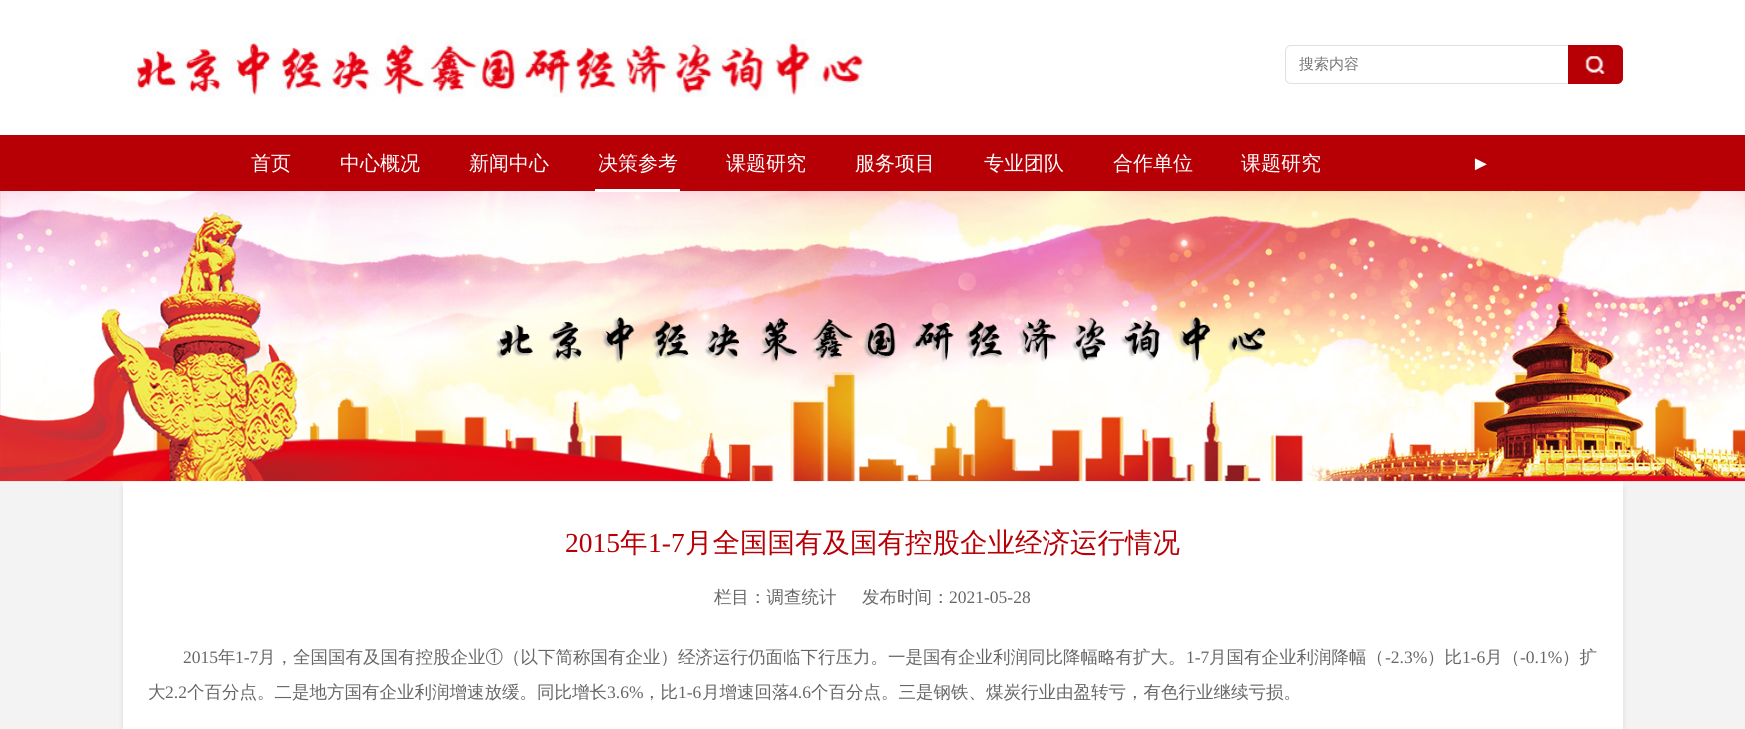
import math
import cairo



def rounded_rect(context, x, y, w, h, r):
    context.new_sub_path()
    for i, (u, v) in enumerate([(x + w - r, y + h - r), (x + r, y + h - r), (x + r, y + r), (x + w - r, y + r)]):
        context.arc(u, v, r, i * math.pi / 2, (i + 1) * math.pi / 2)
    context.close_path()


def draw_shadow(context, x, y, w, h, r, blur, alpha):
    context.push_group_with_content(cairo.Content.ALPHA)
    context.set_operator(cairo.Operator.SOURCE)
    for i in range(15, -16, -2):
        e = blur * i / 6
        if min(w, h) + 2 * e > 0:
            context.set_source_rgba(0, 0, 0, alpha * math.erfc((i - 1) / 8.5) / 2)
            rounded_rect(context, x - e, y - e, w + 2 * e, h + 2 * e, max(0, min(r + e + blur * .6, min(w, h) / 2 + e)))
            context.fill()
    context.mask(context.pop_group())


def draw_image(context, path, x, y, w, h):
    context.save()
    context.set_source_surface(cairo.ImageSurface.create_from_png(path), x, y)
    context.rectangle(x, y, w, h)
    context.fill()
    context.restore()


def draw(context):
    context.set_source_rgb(243 / 255, 243 / 255, 243 / 255)
    context.paint()
    context.set_source_rgb(1, 1, 1)
    context.rectangle(0, 0, 1745, 135)
    context.fill()
    draw_image(context, "images/1.png", 132, 38, 733, 59)
    rounded_rect(context, 1285.5, 45.5, 337, 38, 5.5)
    context.set_source_rgb(224 / 255, 224 / 255, 224 / 255)
    context.set_line_width(1)
    context.stroke()
    context.set_source_rgb(182 / 255, 0, 5 / 255)
    context.new_path()
    context.move_to(1568, 45)
    context.line_to(1617, 45)
    context.curve_to(1620.5, 45, 1623, 47.5, 1623, 51)
    context.line_to(1623, 78)
    context.curve_to(1623, 81.5, 1620.5, 84, 1617, 84)
    context.line_to(1568, 84)
    context.close_path()
    context.fill()
    draw_image(context, "images/2.png", 1585, 56, 20, 18)
    context.rectangle(0, 135, 1745, 56)
    context.fill()
    context.set_source_rgb(0, 0, 0)
    draw_shadow(context, 123, 488, 1500, 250, 0, 3, 0.1)
    context.set_source_rgb(1, 1, 1)
    context.rectangle(123, 481, 1500, 248)
    context.fill()
    draw_image(context, "images/3.png", 0, 191, 1745, 291)
    context.rectangle(595, 189, 85, 3)
    context.fill()
    context.select_font_face("WenQuanYi Zen Hei Medium")
    context.set_font_size(15)
    context.set_source_rgb(117 / 255, 117 / 255, 117 / 255)
    context.move_to(1299, 69)
    context.show_text("搜索内容")
    context.set_font_size(20)
    context.set_source_rgb(1, 1, 1)
    context.move_to(251, 170)
    context.show_text("首页")
    context.move_to(340, 170)
    context.show_text("中心概况")
    context.move_to(469, 170)
    context.show_text("新闻中心")
    context.move_to(598, 170)
    context.show_text("决策参考")
    context.move_to(726, 170)
    context.show_text("课题研究")
    context.move_to(855, 170)
    context.show_text("服务项目")
    context.move_to(984, 170)
    context.show_text("专业团队")
    context.move_to(1113, 170)
    context.show_text("合作单位")
    context.move_to(1241, 170)
    context.show_text("课题研究")
    context.select_font_face("Liberation Serif")
    context.move_to(1471, 170)
    context.show_text("►")
    context.set_font_size(27.5)
    context.set_source_rgb(182 / 255, 0, 5 / 255)
    context.move_to(565, 552)
    context.show_text("2015")
    context.select_font_face("WenQuanYi Zen Hei Medium")
    context.move_to(620, 552)
    context.show_text("年")
    context.select_font_face("Liberation Serif")
    context.move_to(648, 552)
    context.show_text("1-7")
    context.select_font_face("WenQuanYi Zen Hei Medium")
    context.move_to(685, 552)
    context.show_text("月全国国有及国有控股企业经济运行情况")
    context.set_font_size(17.5)
    context.set_source_rgb(102 / 255, 102 / 255, 102 / 255)
    context.move_to(714, 603)
    context.show_text("栏目：调查统计")
    context.move_to(862, 603)
    context.show_text("发布时间：")
    context.select_font_face("Liberation Serif")
    context.move_to(949, 603)
    context.show_text("2021-05-28")
    context.move_to(183, 663)
    context.show_text("2015")
    context.select_font_face("WenQuanYi Zen Hei Medium")
    context.move_to(218, 663)
    context.show_text("年")
    context.select_font_face("Liberation Serif")
    context.move_to(235, 663)
    context.show_text("1-7")
    context.select_font_face("WenQuanYi Zen Hei Medium")
    context.move_to(258, 663)
    context.show_text("月，全国国有及国有控股企业①（以下简称国有企业）经济运行仍面临下行压力。一是国有企业利润同比降幅略有扩大。")
    context.select_font_face("Liberation Serif")
    context.move_to(1186, 663)
    context.show_text("1-7")
    context.select_font_face("WenQuanYi Zen Hei Medium")
    context.move_to(1209, 663)
    context.show_text("月国有企业利润降幅（")
    context.select_font_face("Liberation Serif")
    context.move_to(1385, 663)
    context.show_text("-2.3%")
    context.select_font_face("WenQuanYi Zen Hei Medium")
    context.move_to(1427, 663)
    context.show_text("）比")
    context.select_font_face("Liberation Serif")
    context.move_to(1462, 663)
    context.show_text("1-6")
    context.select_font_face("WenQuanYi Zen Hei Medium")
    context.move_to(1485, 663)
    context.show_text("月（")
    context.select_font_face("Liberation Serif")
    context.move_to(1520, 663)
    context.show_text("-0.1%")
    context.select_font_face("WenQuanYi Zen Hei Medium")
    context.move_to(1562, 663)
    context.show_text("）扩")
    context.move_to(148, 698)
    context.show_text("大")
    context.select_font_face("Liberation Serif")
    context.move_to(165, 698)
    context.show_text("2.2")
    context.select_font_face("WenQuanYi Zen Hei Medium")
    context.move_to(187, 698)
    context.show_text("个百分点。二是地方国有企业利润增速放缓。同比增长")
    context.select_font_face("Liberation Serif")
    context.move_to(607, 698)
    context.show_text("3.6%")
    context.select_font_face("WenQuanYi Zen Hei Medium")
    context.move_to(643, 698)
    context.show_text("，比")
    context.select_font_face("Liberation Serif")
    context.move_to(678, 698)
    context.show_text("1-6")
    context.select_font_face("WenQuanYi Zen Hei Medium")
    context.move_to(702, 698)
    context.show_text("月增速回落")
    context.select_font_face("Liberation Serif")
    context.move_to(789, 698)
    context.show_text("4.6")
    context.select_font_face("WenQuanYi Zen Hei Medium")
    context.move_to(811, 698)
    context.show_text("个百分点。三是钢铁、煤炭行业由盈转亏，有色行业继续亏损。")


surface = cairo.ImageSurface(cairo.Format.RGB24, 1745, 729)
context = cairo.Context(surface)
options = cairo.FontOptions()
options.set_hint_metrics(cairo.HintMetrics.OFF)
options.set_hint_style(cairo.HintStyle.NONE)
context.set_font_options(options)
context.set_miter_limit(4)
draw(context)
surface.write_to_png("out.png")
